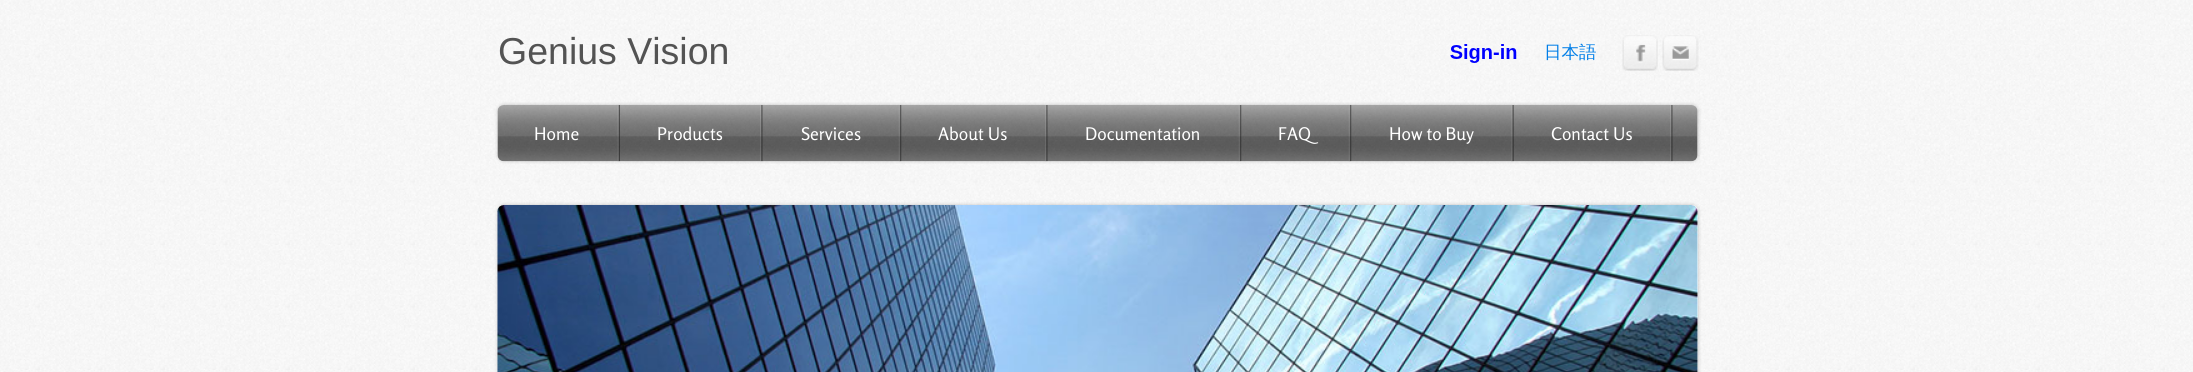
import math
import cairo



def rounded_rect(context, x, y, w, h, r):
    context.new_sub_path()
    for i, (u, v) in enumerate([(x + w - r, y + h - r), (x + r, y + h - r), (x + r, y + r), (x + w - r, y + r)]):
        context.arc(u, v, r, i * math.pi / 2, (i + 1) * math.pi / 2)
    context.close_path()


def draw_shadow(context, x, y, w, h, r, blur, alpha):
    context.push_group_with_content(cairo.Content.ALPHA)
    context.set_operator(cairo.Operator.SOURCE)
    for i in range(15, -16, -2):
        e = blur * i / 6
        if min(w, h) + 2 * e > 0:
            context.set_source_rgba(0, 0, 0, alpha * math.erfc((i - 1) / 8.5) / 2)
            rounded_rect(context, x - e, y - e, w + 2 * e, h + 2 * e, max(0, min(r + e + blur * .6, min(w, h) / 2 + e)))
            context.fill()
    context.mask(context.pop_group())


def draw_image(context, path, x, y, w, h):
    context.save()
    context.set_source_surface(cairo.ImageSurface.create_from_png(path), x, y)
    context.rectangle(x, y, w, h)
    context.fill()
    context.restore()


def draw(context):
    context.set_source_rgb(1, 1, 1)
    context.paint()
    draw_image(context, "images/1.png", 0, 0, 2193, 372)
    draw_image(context, "images/2.png", 1450, 44, 67, 19)
    draw_image(context, "images/3.png", 1622, 35, 36, 36)
    draw_image(context, "images/4.png", 1662, 35, 37, 36)
    context.set_source_rgb(0, 0, 0)
    draw_shadow(context, 498, 105, 1200, 56, 6, 2, 0.23)
    draw_image(context, "images/5.png", 497, 105, 1201, 57)
    draw_image(context, "images/6.png", 617, 105, 3, 57)
    draw_image(context, "images/7.png", 760, 105, 3, 57)
    draw_image(context, "images/8.png", 898, 105, 4, 57)
    draw_image(context, "images/9.png", 1045, 105, 3, 57)
    draw_image(context, "images/10.png", 1238, 105, 4, 57)
    draw_image(context, "images/11.png", 1348, 105, 4, 57)
    draw_image(context, "images/12.png", 1511, 105, 3, 57)
    draw_image(context, "images/13.png", 1670, 105, 3, 57)
    draw_shadow(context, 498, 205, 1200, 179, 6, 2, 0.23)
    context.set_source_rgb(1, 1, 1)
    rounded_rect(context, 498, 205, 1200, 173, 6)
    context.fill()
    draw_image(context, "images/14.png", 497, 205, 1201, 167)
    context.select_font_face("Liberation Sans")
    context.set_font_size(37.5)
    context.set_source_rgb(83 / 255, 83 / 255, 83 / 255)
    context.move_to(498, 64)
    context.show_text("Genius Vision")
    context.select_font_face("WenQuanYi Zen Hei Medium")
    context.set_font_size(17.5)
    context.set_source_rgb(0, 126 / 255, 232 / 255)
    context.move_to(1544, 58)
    context.show_text("日本語")
    context.select_font_face("Rosario")
    context.set_source_rgb(1, 1, 1)
    context.move_to(534, 140)
    context.show_text("Home")
    context.move_to(657, 140)
    context.show_text("Products")
    context.move_to(801, 140)
    context.show_text("Services")
    context.move_to(938, 140)
    context.show_text("About Us")
    context.move_to(1085, 140)
    context.show_text("Documentation")
    context.move_to(1278, 140)
    context.show_text("FAQ")
    context.move_to(1389, 140)
    context.show_text("How to Buy")
    context.move_to(1551, 140)
    context.show_text("Contact Us")


surface = cairo.ImageSurface(cairo.Format.RGB24, 2193, 372)
context = cairo.Context(surface)
options = cairo.FontOptions()
options.set_hint_metrics(cairo.HintMetrics.OFF)
options.set_hint_style(cairo.HintStyle.NONE)
context.set_font_options(options)
context.set_miter_limit(4)
draw(context)
surface.write_to_png("out.png")
